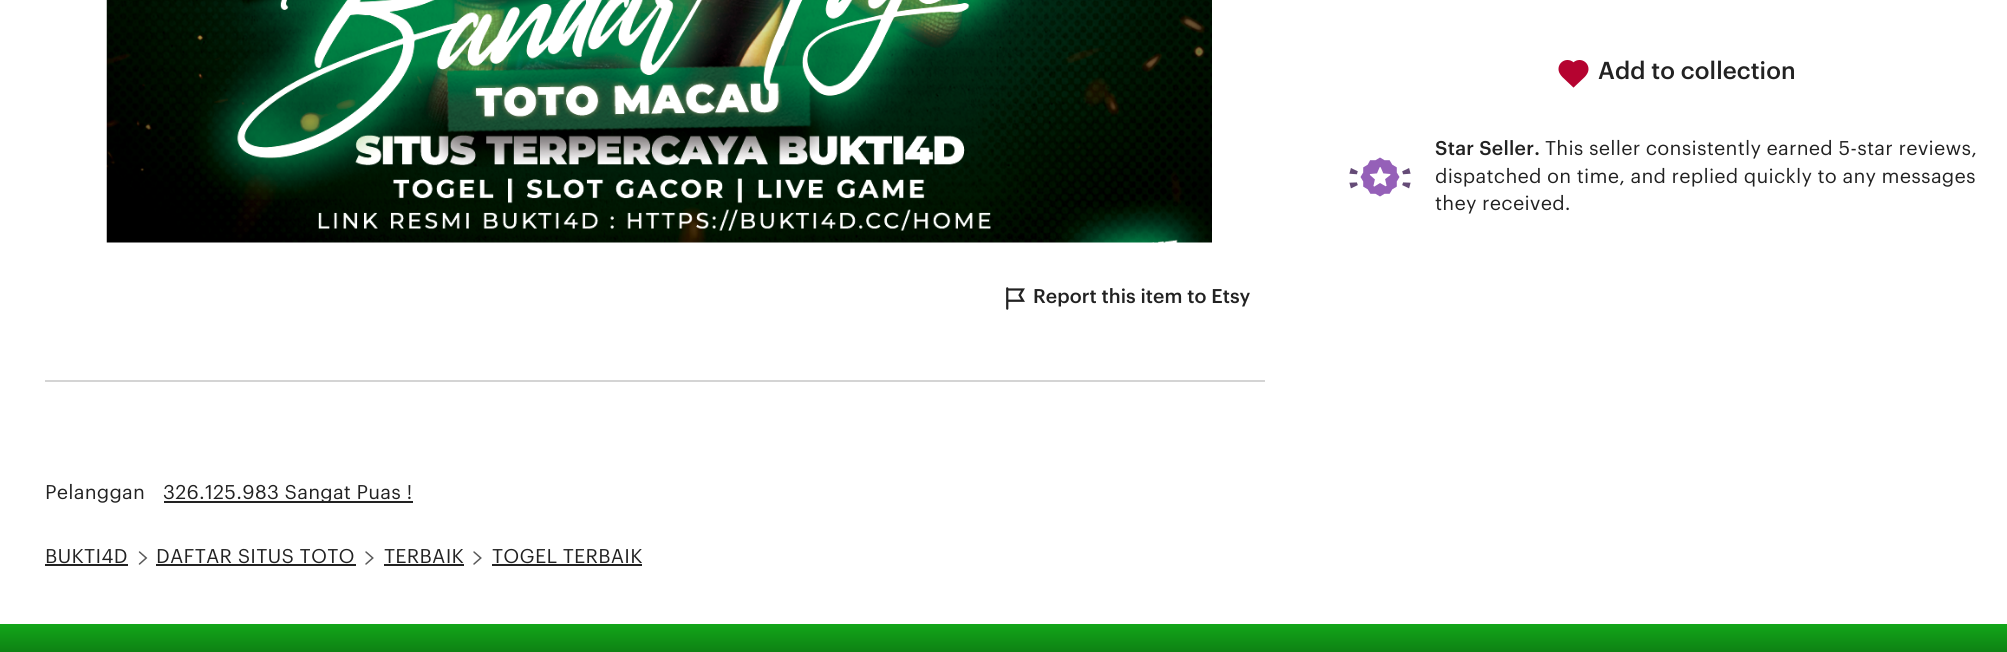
import math
import cairo



def draw_spaced(context, x, y, s, letter, word):
    context.move_to(x, y)
    for ch in s:
        context.show_text(ch)
        context.rel_move_to(letter + word * (ch == ' '), 0)


def draw_image(context, path, x, y, w, h):
    context.save()
    context.set_source_surface(cairo.ImageSurface.create_from_png(path), x, y)
    context.rectangle(x, y, w, h)
    context.fill()
    context.restore()


def draw(context):
    context.set_source_rgb(1, 1, 1)
    context.paint()
    draw_image(context, "images/1.png", 1558, 60, 31, 28)
    draw_image(context, "images/2.png", 1349, 157, 62, 40)
    draw_image(context, "images/3.png", 106, 0, 1106, 243)
    draw_image(context, "images/4.png", 1006, 287, 19, 23)
    context.set_source_rgb(212 / 255, 212 / 255, 212 / 255)
    context.rectangle(45, 380, 1220, 2)
    context.fill()
    context.set_source_rgb(34 / 255, 34 / 255, 34 / 255)
    context.rectangle(164, 501, 249, 2)
    context.fill()
    context.rectangle(45, 564, 83, 2)
    context.fill()
    draw_image(context, "images/5.png", 138, 551, 10, 14)
    context.rectangle(156, 564, 200, 2)
    context.fill()
    draw_image(context, "images/6.png", 365, 551, 9, 14)
    context.rectangle(384, 564, 80, 2)
    context.fill()
    draw_image(context, "images/6.png", 473, 551, 9, 14)
    context.rectangle(492, 564, 150, 2)
    context.fill()
    gradient = cairo.LinearGradient(1004, 624, 1004, 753)
    gradient.add_color_stop_rgba(0, 18 / 255, 166 / 255, 25 / 255, 1)
    gradient.add_color_stop_rgba(1, 0, 0, 0, 1)
    context.set_source(gradient)
    context.rectangle(0, 624, 2007, 28)
    context.fill()
    context.select_font_face("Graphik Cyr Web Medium")
    context.set_font_size(24)
    context.set_source_rgb(34 / 255, 34 / 255, 34 / 255)
    context.move_to(1598, 79)
    context.show_text("Add to collection")
    context.set_font_size(19.5)
    draw_spaced(context, 1435, 155, "Star Seller.", 0.2, 0)
    context.select_font_face("Graphik Cyr Web")
    draw_spaced(context, 1545, 155, "This seller consistently earned 5-star reviews,", 0.2, 0)
    draw_spaced(context, 1435, 183, "dispatched on time, and replied quickly to any messages", 0.2, 0)
    draw_spaced(context, 1435, 210, "they received.", 0.2, 0)
    context.select_font_face("Graphik Cyr Web Medium")
    context.move_to(1033, 303)
    context.show_text("Report this item to Etsy")
    context.select_font_face("Graphik Cyr Web")
    draw_spaced(context, 45, 499, "Pelanggan", 0.2, 0)
    draw_spaced(context, 163, 499, "326.125.983 Sangat Puas !", 0.2, 0)
    draw_spaced(context, 45, 563, "BUKTI4D", 0.2, 0)
    draw_spaced(context, 156, 563, "DAFTAR SITUS TOTO", 0.2, 0)
    draw_spaced(context, 384, 563, "TERBAIK", 0.2, 0)
    draw_spaced(context, 492, 563, "TOGEL TERBAIK", 0.2, 0)


surface = cairo.ImageSurface(cairo.Format.RGB24, 2007, 652)
context = cairo.Context(surface)
options = cairo.FontOptions()
options.set_hint_metrics(cairo.HintMetrics.OFF)
options.set_hint_style(cairo.HintStyle.NONE)
context.set_font_options(options)
context.set_miter_limit(4)
draw(context)
surface.write_to_png("out.png")
